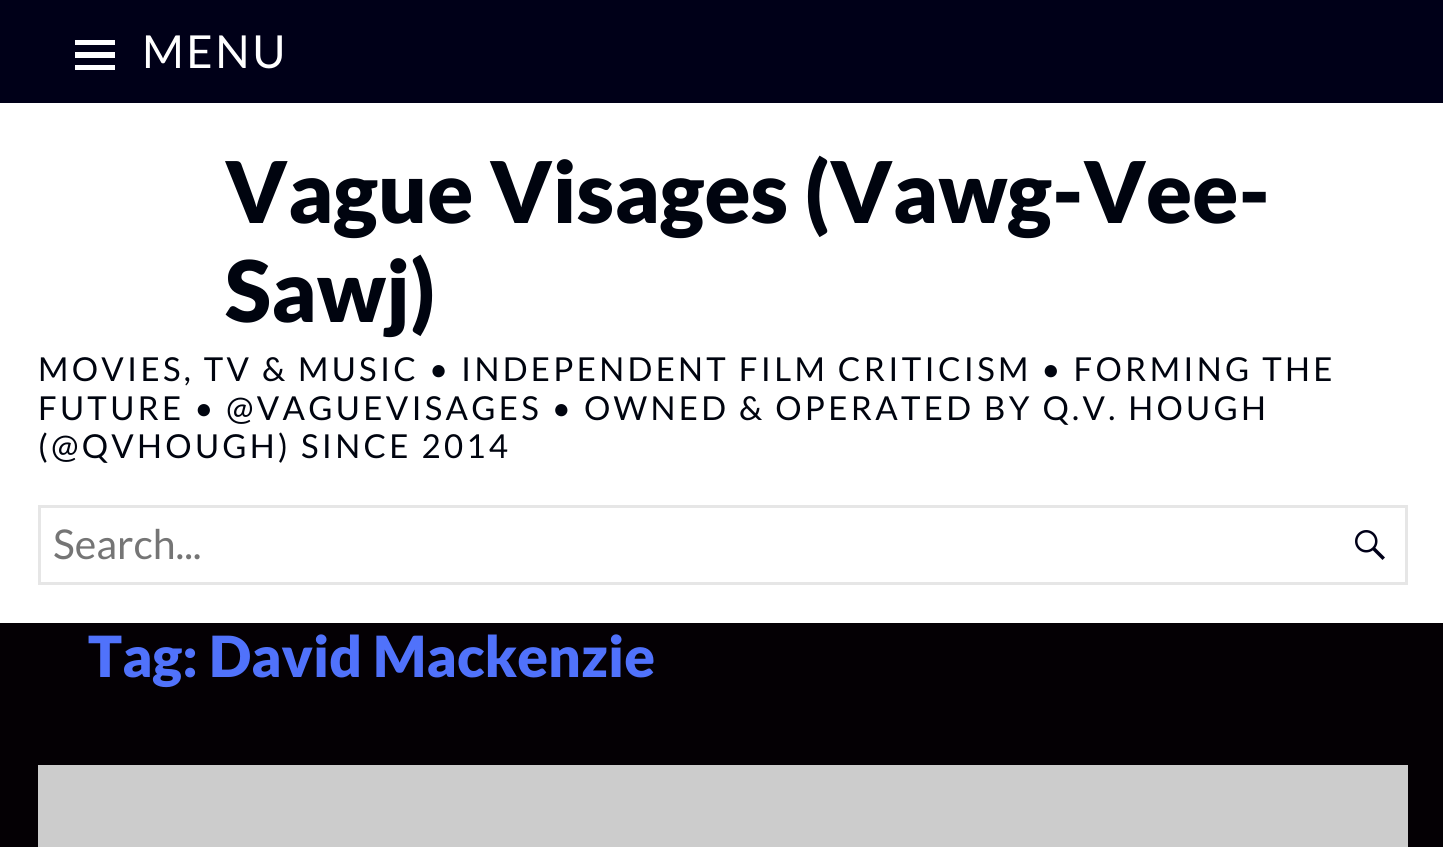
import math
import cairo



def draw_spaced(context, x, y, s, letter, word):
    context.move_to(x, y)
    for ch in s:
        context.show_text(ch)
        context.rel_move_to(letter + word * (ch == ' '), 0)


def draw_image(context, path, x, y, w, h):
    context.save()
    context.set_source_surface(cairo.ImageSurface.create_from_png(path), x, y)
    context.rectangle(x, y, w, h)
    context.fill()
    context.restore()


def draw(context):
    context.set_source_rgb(4 / 255, 0, 4 / 255)
    context.paint()
    context.set_source_rgb(0, 0, 24 / 255)
    context.rectangle(0, 0, 1443, 103)
    context.fill()
    context.set_source_rgb(1, 1, 1)
    context.new_path()
    context.move_to(75, 70)
    context.line_to(75, 65)
    context.line_to(115, 65)
    context.line_to(115, 70)
    context.close_path()
    context.move_to(75, 40)
    context.line_to(115, 40)
    context.line_to(115, 45)
    context.line_to(75, 45)
    context.close_path()
    context.move_to(75, 58)
    context.line_to(75, 52)
    context.line_to(115, 52)
    context.line_to(115, 58)
    context.close_path()
    context.fill()
    context.rectangle(0, 103, 1443, 520)
    context.fill()
    context.rectangle(39.5, 506.5, 1367, 77)
    context.set_source_rgb(230 / 255, 230 / 255, 230 / 255)
    context.set_line_width(3)
    context.stroke()
    draw_image(context, "images/1.png", 1355, 530, 30, 30)
    context.set_source_rgb(204 / 255, 204 / 255, 204 / 255)
    context.rectangle(38, 765, 1370, 82)
    context.fill()
    context.select_font_face("Lato")
    context.set_font_size(45.5)
    context.set_source_rgb(1, 1, 1)
    draw_spaced(context, 142, 68, "MENU", 2.5, 0)
    context.select_font_face("Lato Black")
    context.set_font_size(85)
    context.set_source_rgb(0, 4 / 255, 15 / 255)
    context.move_to(225, 223)
    context.show_text("Vague Visages (Vawg-Vee-")
    context.move_to(225, 322)
    context.show_text("Sawj)")
    context.select_font_face("Lato")
    context.set_font_size(33)
    draw_spaced(context, 38, 381, "MOVIES, TV & MUSIC • INDEPENDENT FILM CRITICISM • FORMING THE", 3.3, 0)
    draw_spaced(context, 38, 420, "FUTURE • @VAGUEVISAGES • OWNED & OPERATED BY Q.V. HOUGH", 3.3, 0)
    draw_spaced(context, 38, 458, "(@QVHOUGH) SINCE 2014", 3.3, 0)
    context.set_font_size(41)
    context.set_source_rgb(117 / 255, 117 / 255, 117 / 255)
    context.move_to(53, 559)
    context.show_text("Search...")
    context.select_font_face("Lato Black")
    context.set_font_size(56.75)
    context.set_source_rgb(80 / 255, 114 / 255, 251 / 255)
    context.move_to(88, 677)
    context.show_text("Tag: David Mackenzie")


surface = cairo.ImageSurface(cairo.Format.RGB24, 1443, 847)
context = cairo.Context(surface)
options = cairo.FontOptions()
options.set_hint_metrics(cairo.HintMetrics.OFF)
options.set_hint_style(cairo.HintStyle.NONE)
context.set_font_options(options)
context.set_miter_limit(4)
draw(context)
surface.write_to_png("out.png")
